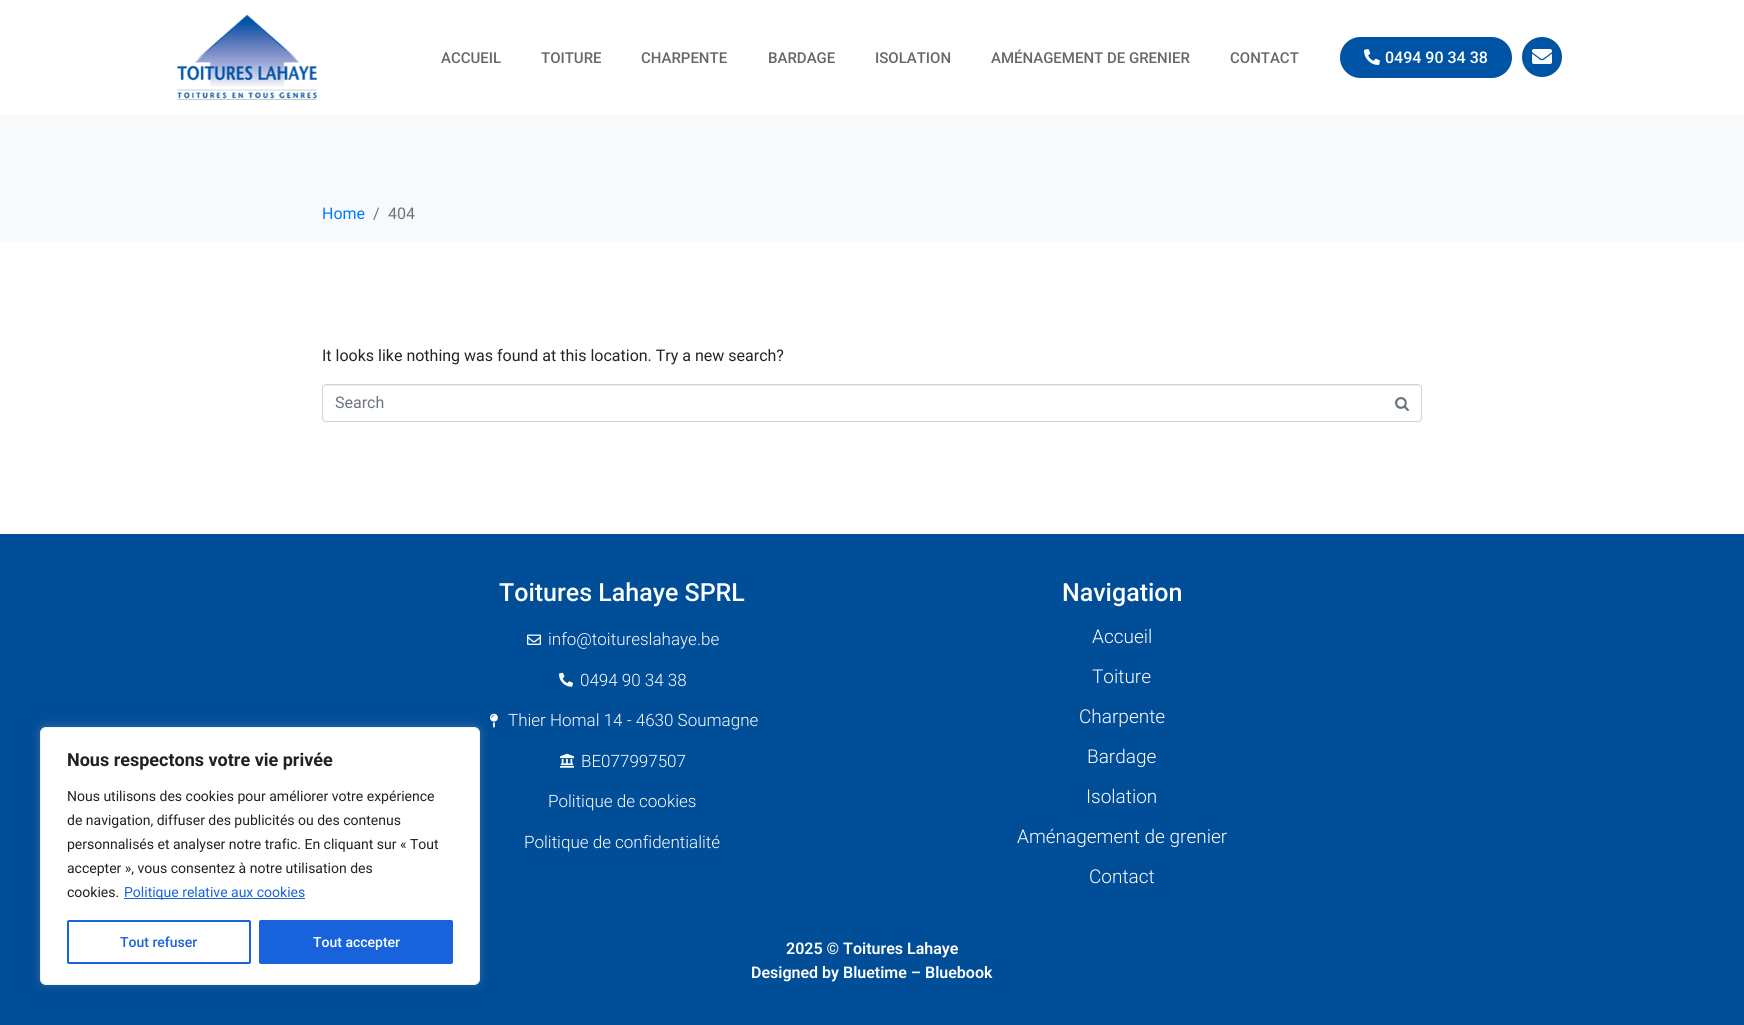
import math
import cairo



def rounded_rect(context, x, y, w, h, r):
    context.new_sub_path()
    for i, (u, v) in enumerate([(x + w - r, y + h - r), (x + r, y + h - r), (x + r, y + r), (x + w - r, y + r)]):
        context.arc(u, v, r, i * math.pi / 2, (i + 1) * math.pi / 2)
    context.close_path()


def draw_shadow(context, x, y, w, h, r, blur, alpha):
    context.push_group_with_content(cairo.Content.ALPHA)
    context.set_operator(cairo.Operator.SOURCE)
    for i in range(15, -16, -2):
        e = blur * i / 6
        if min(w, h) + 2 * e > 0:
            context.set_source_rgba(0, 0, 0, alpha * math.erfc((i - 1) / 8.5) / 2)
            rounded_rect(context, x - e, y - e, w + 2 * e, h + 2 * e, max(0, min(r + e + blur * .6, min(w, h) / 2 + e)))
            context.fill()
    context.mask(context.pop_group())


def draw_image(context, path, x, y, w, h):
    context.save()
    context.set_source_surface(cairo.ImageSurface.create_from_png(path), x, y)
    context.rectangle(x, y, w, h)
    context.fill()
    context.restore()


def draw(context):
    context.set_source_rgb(1, 1, 1)
    context.paint()
    context.set_source_rgb(0, 77 / 255, 152 / 255)
    context.rectangle(0, 534, 1744, 491)
    context.fill()
    draw_image(context, "images/7.png", 490, 713, 8, 15)
    context.set_source_rgb(172 / 255, 171 / 255, 171 / 255)
    draw_shadow(context, 40, 726, 440, 258, 6, 5, 0.3)
    context.set_source_rgb(1, 1, 1)
    rounded_rect(context, 40.5, 727.5, 439, 257, 5.5)
    context.fill_preserve()
    context.set_source_rgb(244 / 255, 244 / 255, 244 / 255)
    context.set_line_width(1)
    context.stroke()
    context.set_source_rgb(24 / 255, 99 / 255, 220 / 255)
    context.rectangle(124, 898, 181, 1)
    context.fill()
    rounded_rect(context, 68, 921, 182, 42, 1)
    context.set_line_width(2)
    context.stroke()
    rounded_rect(context, 260, 921, 192, 42, 1)
    context.fill_preserve()
    context.stroke()
    context.set_source_rgb(247 / 255, 247 / 255, 247 / 255)
    context.rectangle(0, 115, 1744, 1)
    context.fill()
    draw_image(context, "images/1.png", 177, 15, 140, 85)
    context.set_source_rgb(0, 84 / 255, 166 / 255)
    rounded_rect(context, 1340, 37, 172, 41, 20.5)
    context.fill()
    draw_image(context, "images/2.png", 1364, 49, 16, 16)
    context.arc(1542, 57, 20, 0, 2 * math.pi)
    context.fill()
    draw_image(context, "images/3.png", 1532, 49, 20, 15)
    context.set_source_rgb(248 / 255, 249 / 255, 250 / 255)
    context.rectangle(0, 116, 1744, 126)
    context.fill()
    context.set_source_rgb(236 / 255, 236 / 255, 236 / 255)
    context.new_path()
    context.move_to(326, 386)
    context.line_to(1418, 386)
    context.curve_to(1420, 386, 1421, 387, 1421, 389)
    context.line_to(1421, 388)
    context.curve_to(1421, 386, 1420, 385, 1418, 385)
    context.line_to(326, 385)
    context.curve_to(324, 385, 323, 386, 323, 388)
    context.line_to(323, 389)
    context.curve_to(323, 387, 324, 386, 326, 386)
    context.close_path()
    context.fill()
    rounded_rect(context, 322.5, 384.5, 1099, 37, 3.5)
    context.set_source_rgb(206 / 255, 212 / 255, 218 / 255)
    context.set_line_width(1)
    context.stroke()
    draw_image(context, "images/4.png", 1395, 397, 14, 15)
    draw_image(context, "images/5.png", 527, 634, 14, 11)
    draw_image(context, "images/6.png", 559, 672, 14, 15)
    draw_image(context, "images/8.png", 560, 753, 14, 15)
    context.select_font_face("Roboto", cairo.FontSlant.NORMAL, cairo.FontWeight.BOLD)
    context.set_font_size(18)
    context.set_source_rgb(33 / 255, 33 / 255, 33 / 255)
    context.move_to(67, 766)
    context.show_text("Nous respectons votre vie privée")
    context.select_font_face("Roboto")
    context.set_font_size(14)
    context.move_to(67, 801)
    context.show_text("Nous utilisons des cookies pour améliorer votre expérience")
    context.move_to(67, 825)
    context.show_text("de navigation, diffuser des publicités ou des contenus")
    context.move_to(67, 849)
    context.show_text("personnalisés et analyser notre trafic. En cliquant sur « Tout")
    context.move_to(67, 873)
    context.show_text("accepter », vous consentez à notre utilisation des")
    context.move_to(67, 897)
    context.show_text("cookies.")
    context.set_source_rgb(24 / 255, 99 / 255, 220 / 255)
    context.move_to(124, 897)
    context.show_text("Politique relative aux cookies")
    context.select_font_face("Roboto Medium")
    context.move_to(120, 947)
    context.show_text("Tout refuser")
    context.set_source_rgb(1, 1, 1)
    context.move_to(313, 947)
    context.show_text("Tout accepter")
    context.set_font_size(15)
    context.set_source_rgb(103 / 255, 103 / 255, 104 / 255)
    context.move_to(441, 63)
    context.show_text("ACCUEIL")
    context.move_to(541, 63)
    context.show_text("TOITURE")
    context.move_to(641, 63)
    context.show_text("CHARPENTE")
    context.move_to(768, 63)
    context.show_text("BARDAGE")
    context.move_to(875, 63)
    context.show_text("ISOLATION")
    context.move_to(991, 63)
    context.show_text("AMÉNAGEMENT DE GRENIER")
    context.move_to(1230, 63)
    context.show_text("CONTACT")
    context.set_font_size(16)
    context.set_source_rgb(1, 1, 1)
    context.move_to(1385, 63)
    context.show_text("0494 90 34 38")
    context.select_font_face("Roboto")
    context.set_source_rgb(0, 123 / 255, 1)
    context.move_to(322, 219)
    context.show_text("Home")
    context.set_source_rgb(108 / 255, 117 / 255, 125 / 255)
    context.move_to(373, 219)
    context.show_text("/")
    context.move_to(388, 219)
    context.show_text("404")
    context.set_source_rgb(33 / 255, 37 / 255, 41 / 255)
    context.move_to(322, 361)
    context.show_text("It looks like nothing was found at this location. Try a new search?")
    context.set_source_rgb(108 / 255, 117 / 255, 125 / 255)
    context.move_to(335, 408)
    context.show_text("Search")
    context.select_font_face("Roboto Medium")
    context.set_font_size(25)
    context.set_source_rgb(1, 1, 1)
    context.move_to(499, 601)
    context.show_text("Toitures Lahaye SPRL")
    context.select_font_face("Roboto Light")
    context.set_font_size(17)
    context.move_to(548, 645)
    context.show_text("info@toitureslahaye.be")
    context.move_to(580, 686)
    context.show_text("0494 90 34 38")
    context.move_to(508, 726)
    context.show_text("Thier Homal 14 - 4630 Soumagne")
    context.move_to(581, 767)
    context.show_text("BE077997507")
    context.move_to(548, 807)
    context.show_text("Politique de cookies")
    context.move_to(524, 848)
    context.show_text("Politique de confidentialité")
    context.select_font_face("Roboto Medium")
    context.set_font_size(25)
    context.move_to(1062, 601)
    context.show_text("Navigation")
    context.select_font_face("Roboto Light")
    context.set_font_size(19)
    context.move_to(1092, 643)
    context.show_text("Accueil")
    context.move_to(1092, 683)
    context.show_text("Toiture")
    context.move_to(1079, 723)
    context.show_text("Charpente")
    context.move_to(1087, 763)
    context.show_text("Bardage")
    context.move_to(1086, 803)
    context.show_text("Isolation")
    context.move_to(1017, 843)
    context.show_text("Aménagement de grenier")
    context.move_to(1089, 883)
    context.show_text("Contact")
    context.select_font_face("Roboto SemiBold")
    context.set_font_size(16)
    context.move_to(786, 954)
    context.show_text("2025 © Toitures Lahaye")
    context.move_to(751, 978)
    context.show_text("Designed by Bluetime – Bluebook")


surface = cairo.ImageSurface(cairo.Format.RGB24, 1744, 1025)
context = cairo.Context(surface)
options = cairo.FontOptions()
options.set_hint_metrics(cairo.HintMetrics.OFF)
options.set_hint_style(cairo.HintStyle.NONE)
context.set_font_options(options)
context.set_miter_limit(4)
draw(context)
surface.write_to_png("out.png")
